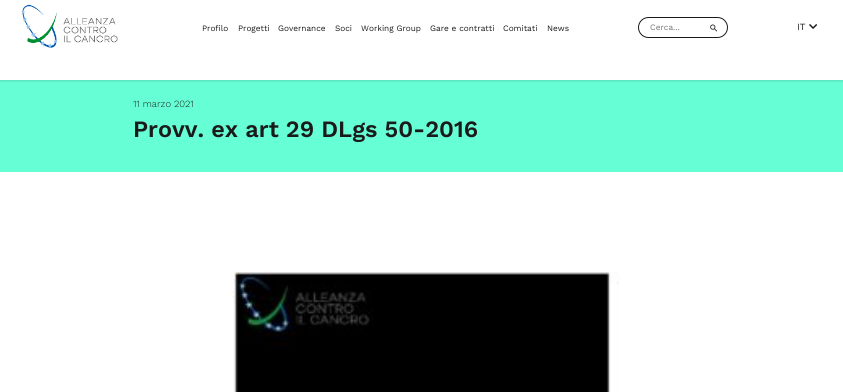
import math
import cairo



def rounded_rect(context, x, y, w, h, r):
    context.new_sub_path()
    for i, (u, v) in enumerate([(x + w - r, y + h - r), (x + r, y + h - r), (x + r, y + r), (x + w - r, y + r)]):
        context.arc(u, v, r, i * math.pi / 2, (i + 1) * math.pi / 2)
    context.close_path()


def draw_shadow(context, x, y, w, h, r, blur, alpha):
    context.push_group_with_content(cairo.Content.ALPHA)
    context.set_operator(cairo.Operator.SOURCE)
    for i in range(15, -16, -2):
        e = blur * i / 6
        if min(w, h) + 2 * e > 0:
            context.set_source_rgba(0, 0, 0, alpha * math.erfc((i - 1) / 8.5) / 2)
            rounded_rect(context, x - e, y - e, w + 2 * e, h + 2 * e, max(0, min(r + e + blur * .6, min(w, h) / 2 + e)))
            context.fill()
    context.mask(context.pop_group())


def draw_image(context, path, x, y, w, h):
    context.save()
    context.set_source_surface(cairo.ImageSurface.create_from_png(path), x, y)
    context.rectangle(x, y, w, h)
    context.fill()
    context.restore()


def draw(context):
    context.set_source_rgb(1, 1, 1)
    context.paint()
    context.set_source_rgb(102 / 255, 1, 213 / 255)
    context.rectangle(0, 80, 843, 92)
    context.fill()
    context.save()
    context.rectangle(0, 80, 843, 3)
    context.clip()
    context.set_source_rgb(0, 0, 0)
    draw_shadow(context, 0, 1, 843, 80, 0, 1.5, 0.15)
    context.restore()
    draw_image(context, "images/1.png", 21, 4, 97, 44)
    rounded_rect(context, 638.5, 17.5, 89, 20, 10)
    context.set_source_rgb(26 / 255, 26 / 255, 26 / 255)
    context.set_line_width(1)
    context.stroke()
    draw_image(context, "images/2.png", 710, 24, 8, 8)
    draw_image(context, "images/3.png", 809, 24, 8, 5)
    draw_image(context, "images/4.png", 229, 271, 391, 121)
    context.select_font_face("Work Sans")
    context.set_font_size(8.25)
    context.move_to(202, 31)
    context.show_text("Profilo")
    context.move_to(238, 31)
    context.show_text("Progetti")
    context.move_to(278, 31)
    context.show_text("Governance")
    context.move_to(335, 31)
    context.show_text("Soci")
    context.move_to(361, 31)
    context.show_text("Working Group")
    context.move_to(430, 31)
    context.show_text("Gare e contratti")
    context.move_to(503, 31)
    context.show_text("Comitati")
    context.move_to(547, 31)
    context.show_text("News")
    context.set_source_rgb(117 / 255, 117 / 255, 117 / 255)
    context.move_to(650, 30)
    context.show_text("Cerca...")
    context.set_font_size(9.5)
    context.set_source_rgb(26 / 255, 26 / 255, 26 / 255)
    context.move_to(797, 30)
    context.show_text("IT")
    context.select_font_face("Work Sans Light")
    context.move_to(133, 107)
    context.show_text("11 marzo 2021")
    context.select_font_face("Work Sans SemiBold")
    context.set_font_size(23.4)
    context.move_to(133, 137)
    context.show_text("Provv. ex art 29 DLgs 50-2016")


surface = cairo.ImageSurface(cairo.Format.RGB24, 843, 392)
context = cairo.Context(surface)
options = cairo.FontOptions()
options.set_hint_metrics(cairo.HintMetrics.OFF)
options.set_hint_style(cairo.HintStyle.NONE)
context.set_font_options(options)
context.set_miter_limit(4)
draw(context)
surface.write_to_png("out.png")
